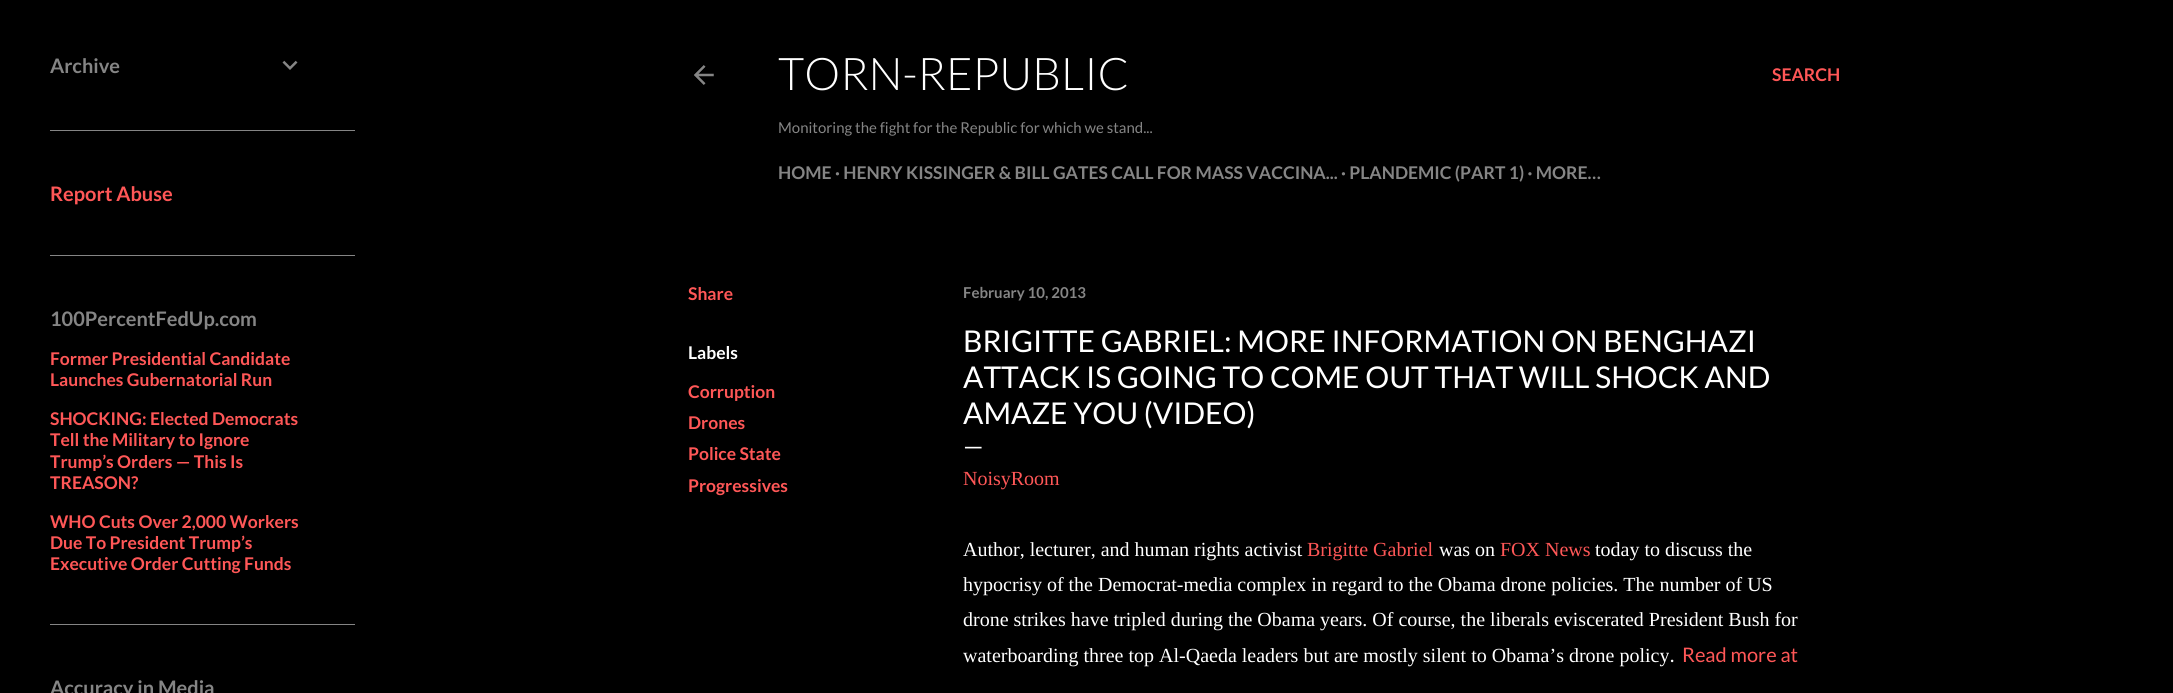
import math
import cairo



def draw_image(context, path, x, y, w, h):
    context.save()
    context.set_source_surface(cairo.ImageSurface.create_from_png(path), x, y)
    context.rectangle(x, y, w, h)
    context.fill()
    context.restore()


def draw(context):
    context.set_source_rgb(0, 0, 0)
    context.paint()
    draw_image(context, "images/1.png", 282, 60, 16, 10)
    context.set_source_rgb(133 / 255, 133 / 255, 133 / 255)
    context.rectangle(50, 130, 305, 1)
    context.fill()
    context.rectangle(50, 255, 305, 1)
    context.fill()
    context.rectangle(50, 624, 305, 1)
    context.fill()
    draw_image(context, "images/2.png", 694, 65, 20, 20)
    context.select_font_face("Lato", cairo.FontSlant.NORMAL, cairo.FontWeight.BOLD)
    context.set_font_size(20)
    context.move_to(50, 73)
    context.show_text("Archive")
    context.set_source_rgb(1, 87 / 255, 87 / 255)
    context.move_to(50, 201)
    context.show_text("Report Abuse")
    context.set_source_rgb(133 / 255, 133 / 255, 133 / 255)
    context.move_to(50, 326)
    context.show_text("100PercentFedUp.com")
    context.set_font_size(17.5)
    context.set_source_rgb(1, 87 / 255, 87 / 255)
    context.move_to(50, 365)
    context.show_text("Former Presidential Candidate")
    context.move_to(50, 386)
    context.show_text("Launches Gubernatorial Run")
    context.move_to(50, 425)
    context.show_text("SHOCKING: Elected Democrats")
    context.move_to(50, 446)
    context.show_text("Tell the Military to Ignore")
    context.move_to(50, 468)
    context.show_text("Trump’s Orders — This Is")
    context.move_to(50, 489)
    context.show_text("TREASON?")
    context.move_to(50, 528)
    context.show_text("WHO Cuts Over 2,000 Workers")
    context.move_to(50, 549)
    context.show_text("Due To President Trump’s")
    context.move_to(50, 570)
    context.show_text("Executive Order Cutting Funds")
    context.set_font_size(20)
    context.set_source_rgb(133 / 255, 133 / 255, 133 / 255)
    context.move_to(50, 695)
    context.show_text("Accuracy in Media")
    context.select_font_face("Lato Light")
    context.set_font_size(45)
    context.set_source_rgb(1, 1, 1)
    context.move_to(778, 90)
    context.show_text("TORN-REPUBLIC")
    context.select_font_face("Lato")
    context.set_font_size(15)
    context.set_source_rgb(133 / 255, 133 / 255, 133 / 255)
    context.move_to(778, 133)
    context.show_text("Monitoring the fight for the Republic for which we stand...")
    context.select_font_face("Lato", cairo.FontSlant.NORMAL, cairo.FontWeight.BOLD)
    context.set_font_size(17.5)
    context.move_to(778, 179)
    context.show_text("HOME · HENRY KISSINGER & BILL GATES CALL FOR MASS VACCINA... · PLANDEMIC (PART 1) · MORE…")
    context.set_source_rgb(1, 87 / 255, 87 / 255)
    context.move_to(1772, 81)
    context.show_text("SEARCH")
    context.move_to(688, 300)
    context.show_text("Share")
    context.set_source_rgb(1, 1, 1)
    context.move_to(688, 359)
    context.show_text("Labels")
    context.set_source_rgb(1, 87 / 255, 87 / 255)
    context.move_to(688, 398)
    context.show_text("Corruption")
    context.move_to(688, 429)
    context.show_text("Drones")
    context.move_to(688, 460)
    context.show_text("Police State")
    context.move_to(688, 492)
    context.show_text("Progressives")
    context.set_font_size(15)
    context.set_source_rgb(133 / 255, 133 / 255, 133 / 255)
    context.move_to(963, 298)
    context.show_text("February 10, 2013")
    context.select_font_face("Lato")
    context.set_font_size(30)
    context.set_source_rgb(1, 1, 1)
    context.move_to(963, 352)
    context.show_text("BRIGITTE GABRIEL: MORE INFORMATION ON BENGHAZI")
    context.move_to(963, 388)
    context.show_text("ATTACK IS GOING TO COME OUT THAT WILL SHOCK AND")
    context.move_to(963, 424)
    context.show_text("AMAZE YOU (VIDEO)")
    context.set_font_size(25)
    context.move_to(963, 455)
    context.show_text("—")
    context.select_font_face("Liberation Serif")
    context.set_font_size(20)
    context.set_source_rgb(1, 87 / 255, 87 / 255)
    context.move_to(963, 485)
    context.show_text("NoisyRoom")
    context.set_source_rgb(1, 1, 1)
    context.move_to(963, 556)
    context.show_text("Author, lecturer, and human rights activist")
    context.set_source_rgb(1, 87 / 255, 87 / 255)
    context.move_to(1307, 556)
    context.show_text("Brigitte Gabriel")
    context.set_source_rgb(1, 1, 1)
    context.move_to(1439, 556)
    context.show_text("was on")
    context.set_source_rgb(1, 87 / 255, 87 / 255)
    context.move_to(1500, 556)
    context.show_text("FOX News")
    context.set_source_rgb(1, 1, 1)
    context.move_to(1595, 556)
    context.show_text("today to discuss the")
    context.move_to(963, 591)
    context.show_text("hypocrisy of the Democrat-media complex in regard to the Obama drone policies. The number of US")
    context.move_to(963, 626)
    context.show_text("drone strikes have tripled during the Obama years. Of course, the liberals eviscerated President Bush for")
    context.move_to(963, 662)
    context.show_text("waterboarding three top Al-Qaeda leaders but are mostly silent to Obama’s drone policy")
    context.select_font_face("Lato")
    context.move_to(1670, 662)
    context.show_text(".")
    context.set_source_rgb(1, 87 / 255, 87 / 255)
    context.move_to(1682, 662)
    context.show_text("Read more at")


surface = cairo.ImageSurface(cairo.Format.RGB24, 2173, 693)
context = cairo.Context(surface)
options = cairo.FontOptions()
options.set_hint_metrics(cairo.HintMetrics.OFF)
options.set_hint_style(cairo.HintStyle.NONE)
context.set_font_options(options)
context.set_miter_limit(4)
draw(context)
surface.write_to_png("out.png")
